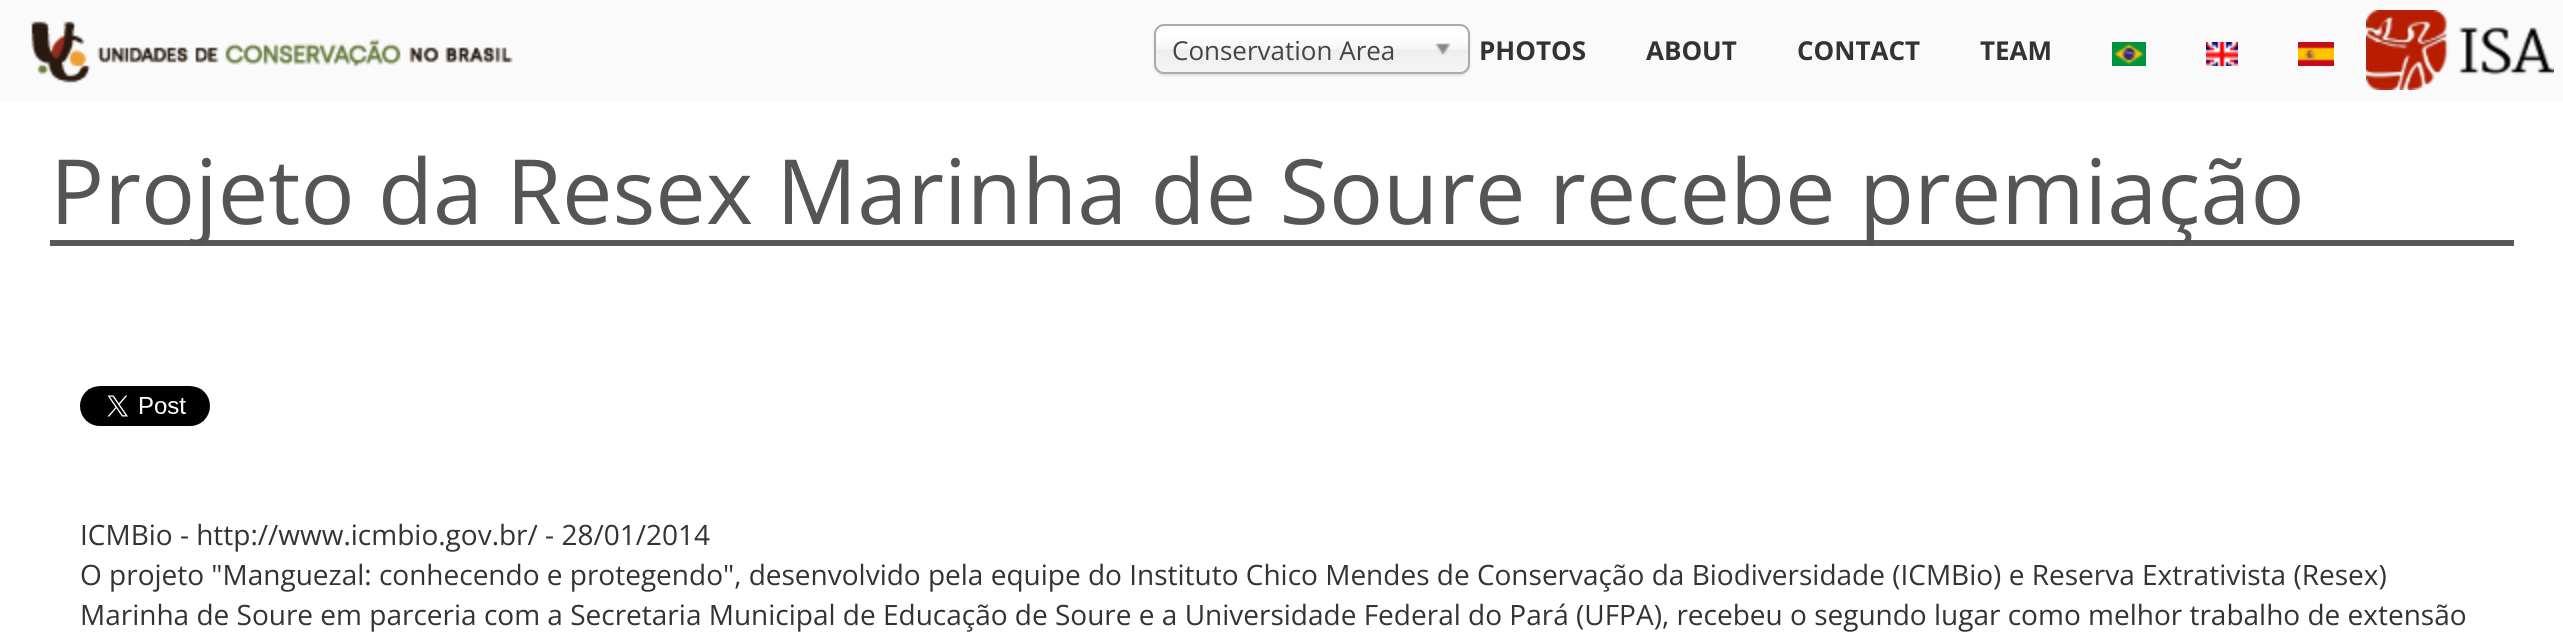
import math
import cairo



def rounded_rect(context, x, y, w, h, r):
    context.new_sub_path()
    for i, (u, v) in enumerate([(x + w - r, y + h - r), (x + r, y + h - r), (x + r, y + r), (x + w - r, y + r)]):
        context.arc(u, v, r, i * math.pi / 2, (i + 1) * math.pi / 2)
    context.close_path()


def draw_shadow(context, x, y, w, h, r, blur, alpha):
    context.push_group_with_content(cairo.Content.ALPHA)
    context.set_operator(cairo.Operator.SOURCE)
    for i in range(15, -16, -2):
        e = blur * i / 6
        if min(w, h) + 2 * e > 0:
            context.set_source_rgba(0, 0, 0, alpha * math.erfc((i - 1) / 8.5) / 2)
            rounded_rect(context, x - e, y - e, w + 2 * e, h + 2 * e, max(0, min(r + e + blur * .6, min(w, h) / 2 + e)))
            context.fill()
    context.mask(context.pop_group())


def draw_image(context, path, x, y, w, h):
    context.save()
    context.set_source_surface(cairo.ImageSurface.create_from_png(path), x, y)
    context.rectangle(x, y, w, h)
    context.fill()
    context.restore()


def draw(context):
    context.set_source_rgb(1, 1, 1)
    context.paint()
    context.set_source_rgb(250 / 255, 250 / 255, 250 / 255)
    context.rectangle(0, 0, 2563, 102)
    context.fill()
    draw_image(context, "images/1.png", 31, 21, 482, 62)
    context.set_source_rgb(0, 0, 0)
    draw_shadow(context, 1154, 26, 316, 50, 10, 1, 0.1)
    gradient = cairo.LinearGradient(1312, 26, 1312, 72)
    gradient.add_color_stop_rgba(0.2, 1, 1, 1, 1)
    gradient.add_color_stop_rgba(0.5, 246 / 255, 246 / 255, 246 / 255, 1)
    gradient.add_color_stop_rgba(0.52, 238 / 255, 238 / 255, 238 / 255, 1)
    gradient.add_color_stop_rgba(1, 244 / 255, 244 / 255, 244 / 255, 1)
    context.set_source(gradient)
    rounded_rect(context, 1156, 26, 312, 46, 8)
    context.fill()
    rounded_rect(context, 1155, 25, 314, 48, 9)
    context.set_source_rgb(170 / 255, 170 / 255, 170 / 255)
    context.stroke()
    draw_image(context, "images/2.png", 1435, 43, 16, 12)
    draw_image(context, "images/3.png", 2112, 42, 34, 24)
    draw_image(context, "images/4.png", 2206, 42, 32, 24)
    draw_image(context, "images/5.png", 2298, 42, 36, 24)
    draw_image(context, "images/6.png", 2366, 10, 188, 80)
    context.set_source_rgb(87 / 255, 90 / 255, 87 / 255)
    context.rectangle(50, 240, 2464, 6)
    context.fill()
    draw_image(context, "images/7.png", 80, 386, 130, 40)
    context.select_font_face("Open Sans")
    context.set_font_size(26)
    context.set_source_rgb(68 / 255, 68 / 255, 68 / 255)
    context.move_to(1172, 60)
    context.show_text("Conservation Area")
    context.select_font_face("Open Sans", cairo.FontSlant.NORMAL, cairo.FontWeight.BOLD)
    context.set_source_rgb(51 / 255, 51 / 255, 51 / 255)
    context.move_to(1479, 60)
    context.show_text("PHOTOS")
    context.move_to(1646, 60)
    context.show_text("ABOUT")
    context.move_to(1797, 60)
    context.show_text("CONTACT")
    context.move_to(1980, 60)
    context.show_text("TEAM")
    context.select_font_face("Open Sans")
    context.set_font_size(90)
    context.set_source_rgb(85 / 255, 85 / 255, 85 / 255)
    context.move_to(50, 224)
    context.show_text("Projeto da Resex Marinha de Soure recebe premiação")
    context.set_font_size(28)
    context.set_source_rgb(51 / 255, 51 / 255, 51 / 255)
    context.move_to(80, 545)
    context.show_text("ICMBio - http://www.icmbio.gov.br/ - 28/01/2014")
    context.move_to(80, 585)
    context.show_text("O projeto \"Manguezal: conhecendo e protegendo\", desenvolvido pela equipe do Instituto Chico Mendes de Conservação da Biodiversidade (ICMBio) e Reserva Extrativista (Resex)")
    context.move_to(80, 625)
    context.show_text("Marinha de Soure em parceria com a Secretaria Municipal de Educação de Soure e a Universidade Federal do Pará (UFPA), recebeu o segundo lugar como melhor trabalho de extensão")


surface = cairo.ImageSurface(cairo.Format.RGB24, 2563, 638)
context = cairo.Context(surface)
options = cairo.FontOptions()
options.set_hint_metrics(cairo.HintMetrics.OFF)
options.set_hint_style(cairo.HintStyle.NONE)
context.set_font_options(options)
context.set_miter_limit(4)
draw(context)
surface.write_to_png("out.png")
